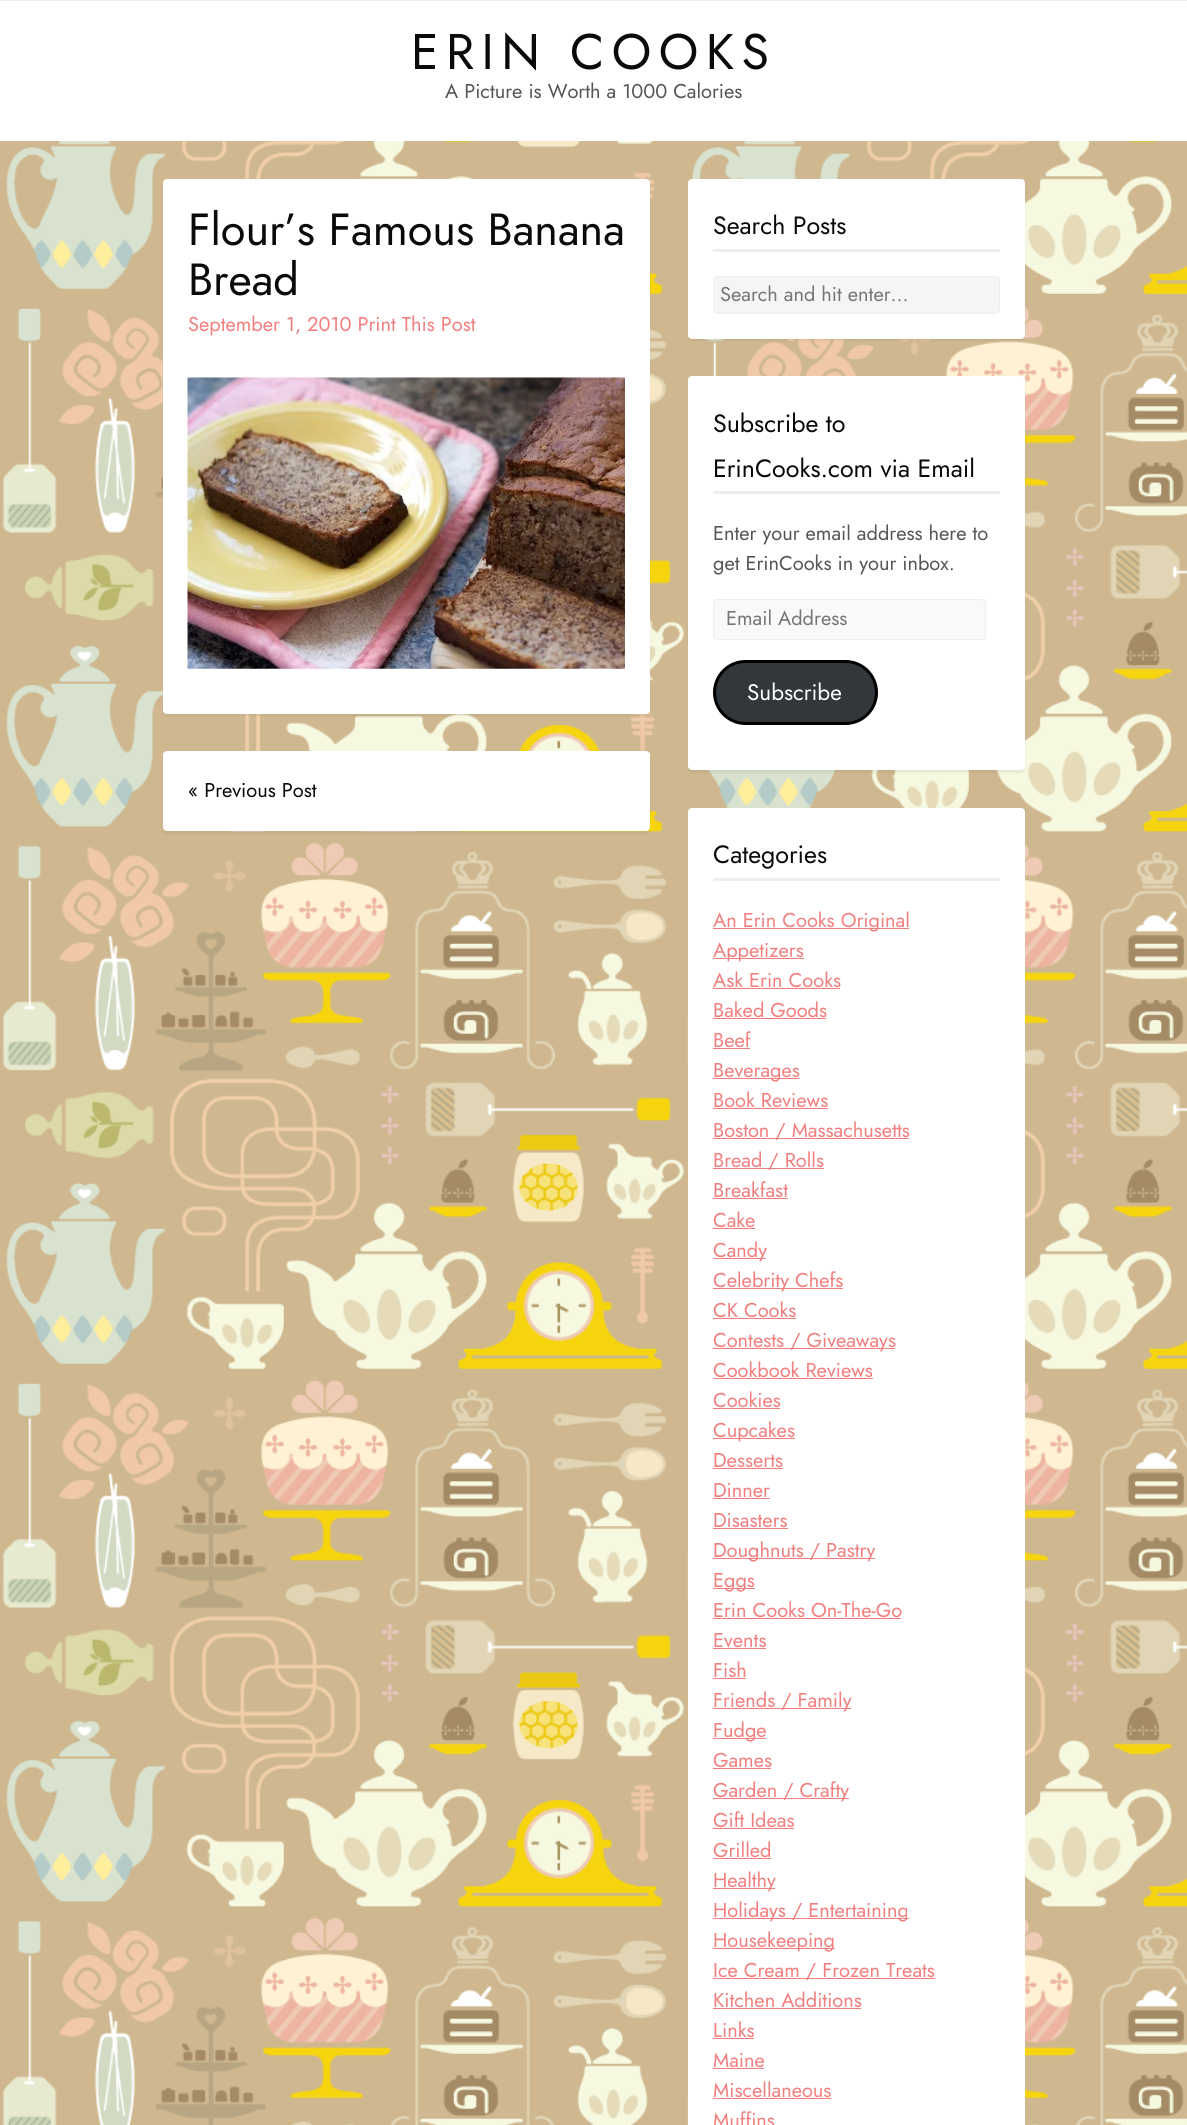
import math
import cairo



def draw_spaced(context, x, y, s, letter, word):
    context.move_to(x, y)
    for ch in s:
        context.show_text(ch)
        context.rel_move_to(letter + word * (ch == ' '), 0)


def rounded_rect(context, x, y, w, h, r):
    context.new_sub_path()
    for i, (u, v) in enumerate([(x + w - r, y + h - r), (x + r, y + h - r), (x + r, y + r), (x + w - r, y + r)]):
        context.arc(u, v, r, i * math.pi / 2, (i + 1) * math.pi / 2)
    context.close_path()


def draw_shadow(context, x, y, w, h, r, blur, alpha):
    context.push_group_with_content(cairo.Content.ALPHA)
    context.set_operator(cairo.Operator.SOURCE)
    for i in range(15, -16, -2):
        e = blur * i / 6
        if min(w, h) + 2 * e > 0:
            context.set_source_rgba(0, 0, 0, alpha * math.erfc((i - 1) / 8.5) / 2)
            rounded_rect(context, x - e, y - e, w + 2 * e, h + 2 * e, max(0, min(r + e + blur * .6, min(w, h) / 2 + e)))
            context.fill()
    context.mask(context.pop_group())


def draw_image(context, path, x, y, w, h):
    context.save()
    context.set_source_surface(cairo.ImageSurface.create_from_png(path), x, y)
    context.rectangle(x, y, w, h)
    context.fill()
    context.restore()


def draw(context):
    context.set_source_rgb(1, 1, 1)
    context.paint()
    draw_image(context, "images/1.png", 0, 141, 1187, 1984)
    context.set_source_rgb(238 / 255, 238 / 255, 238 / 255)
    context.rectangle(0, 0, 1187, 1)
    context.fill()
    context.set_source_rgb(0, 0, 0)
    draw_shadow(context, 163, 181, 487, 535, 4, 1, 0.06)
    context.set_source_rgb(1, 1, 1)
    rounded_rect(context, 163, 179, 487, 535, 4)
    context.fill()
    draw_image(context, "images/2.png", 187, 377, 438, 292)
    context.set_source_rgb(0, 0, 0)
    draw_shadow(context, 163, 754, 487, 80, 4, 1, 0.06)
    context.set_source_rgb(1, 1, 1)
    rounded_rect(context, 163, 751, 487, 80, 4)
    context.fill()
    context.set_source_rgb(0, 0, 0)
    draw_shadow(context, 688, 181, 337, 160, 4, 1, 0.06)
    context.set_source_rgb(1, 1, 1)
    rounded_rect(context, 688, 179, 337, 160, 4)
    context.fill()
    context.set_source_rgb(238 / 255, 238 / 255, 238 / 255)
    context.rectangle(713, 249, 287, 3)
    context.fill()
    context.set_source_rgb(245 / 255, 245 / 255, 245 / 255)
    rounded_rect(context, 713.5, 276.5, 286, 37, 3.5)
    context.fill_preserve()
    context.set_source_rgb(238 / 255, 238 / 255, 238 / 255)
    context.set_line_width(1)
    context.stroke()
    context.set_source_rgb(0, 0, 0)
    draw_shadow(context, 688, 379, 337, 394, 4, 1, 0.06)
    context.set_source_rgb(1, 1, 1)
    rounded_rect(context, 688, 376, 337, 394, 4)
    context.fill()
    context.set_source_rgb(238 / 255, 238 / 255, 238 / 255)
    context.rectangle(713, 491, 287, 3)
    context.fill()
    context.set_source_rgb(249 / 255, 249 / 255, 249 / 255)
    rounded_rect(context, 713.5, 599.5, 272, 40, 3.5)
    context.fill_preserve()
    context.set_source_rgb(238 / 255, 238 / 255, 238 / 255)
    context.stroke()
    context.set_source_rgb(50 / 255, 55 / 255, 60 / 255)
    rounded_rect(context, 714.5, 661.5, 162, 62, 31)
    context.fill_preserve()
    context.set_source_rgb(0, 0, 0)
    context.set_line_width(3)
    context.stroke()
    context.set_source_rgb(1, 1, 1)
    rounded_rect(context, 688, 808, 337, 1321, 4)
    context.fill()
    context.set_source_rgb(238 / 255, 238 / 255, 238 / 255)
    context.rectangle(713, 878, 287, 3)
    context.fill()
    context.set_source_rgb(243 / 255, 126 / 255, 126 / 255)
    context.rectangle(713, 928, 196, 1)
    context.fill()
    context.rectangle(713, 958, 91, 1)
    context.fill()
    context.rectangle(713, 988, 127, 1)
    context.fill()
    context.rectangle(713, 1018, 113, 1)
    context.fill()
    context.rectangle(713, 1048, 37, 1)
    context.fill()
    context.rectangle(713, 1078, 86, 1)
    context.fill()
    context.rectangle(713, 1108, 115, 1)
    context.fill()
    context.rectangle(713, 1138, 196, 1)
    context.fill()
    context.rectangle(713, 1168, 111, 1)
    context.fill()
    context.rectangle(713, 1198, 75, 1)
    context.fill()
    context.rectangle(713, 1228, 42, 1)
    context.fill()
    context.rectangle(713, 1258, 53, 1)
    context.fill()
    context.rectangle(713, 1288, 130, 1)
    context.fill()
    context.rectangle(713, 1318, 83, 1)
    context.fill()
    context.rectangle(713, 1348, 182, 1)
    context.fill()
    context.rectangle(713, 1378, 160, 1)
    context.fill()
    context.rectangle(713, 1408, 67, 1)
    context.fill()
    context.rectangle(713, 1438, 82, 1)
    context.fill()
    context.rectangle(713, 1468, 70, 1)
    context.fill()
    context.rectangle(713, 1498, 57, 1)
    context.fill()
    context.rectangle(713, 1528, 75, 1)
    context.fill()
    context.rectangle(713, 1558, 162, 1)
    context.fill()
    context.rectangle(713, 1588, 42, 1)
    context.fill()
    context.rectangle(713, 1618, 188, 1)
    context.fill()
    context.rectangle(713, 1648, 53, 1)
    context.fill()
    context.rectangle(713, 1678, 33, 1)
    context.fill()
    context.rectangle(713, 1708, 138, 1)
    context.fill()
    context.rectangle(713, 1738, 53, 1)
    context.fill()
    context.rectangle(713, 1768, 58, 1)
    context.fill()
    context.rectangle(713, 1798, 136, 1)
    context.fill()
    context.rectangle(713, 1828, 81, 1)
    context.fill()
    context.rectangle(713, 1858, 58, 1)
    context.fill()
    context.rectangle(713, 1888, 62, 1)
    context.fill()
    context.rectangle(713, 1918, 196, 1)
    context.fill()
    context.rectangle(713, 1948, 122, 1)
    context.fill()
    context.rectangle(713, 1978, 222, 1)
    context.fill()
    context.rectangle(713, 2008, 148, 1)
    context.fill()
    context.rectangle(713, 2038, 41, 1)
    context.fill()
    context.rectangle(713, 2068, 51, 1)
    context.fill()
    context.rectangle(713, 2098, 118, 1)
    context.fill()
    context.select_font_face("Jost")
    context.set_font_size(50)
    context.set_source_rgb(10 / 255, 10 / 255, 10 / 255)
    draw_spaced(context, 411, 69, "ERIN COOKS", 7.5, 0)
    context.set_font_size(20)
    context.set_source_rgb(85 / 255, 85 / 255, 85 / 255)
    context.move_to(445, 98)
    context.show_text("A Picture is Worth a 1000 Calories")
    context.set_font_size(45)
    context.set_source_rgb(10 / 255, 10 / 255, 10 / 255)
    context.move_to(188, 245)
    context.show_text("Flour’s Famous Banana")
    context.move_to(188, 295)
    context.show_text("Bread")
    context.set_font_size(20)
    context.set_source_rgb(243 / 255, 126 / 255, 126 / 255)
    context.move_to(188, 331)
    context.show_text("September 1, 2010 Print This Post")
    context.set_source_rgb(10 / 255, 10 / 255, 10 / 255)
    context.move_to(188, 797)
    context.show_text("« Previous Post")
    context.set_font_size(25)
    context.move_to(713, 234)
    context.show_text("Search Posts")
    context.set_font_size(20)
    context.set_source_rgb(117 / 255, 117 / 255, 117 / 255)
    context.move_to(720, 301)
    context.show_text("Search and hit enter...")
    context.set_font_size(25)
    context.set_source_rgb(10 / 255, 10 / 255, 10 / 255)
    context.move_to(713, 432)
    context.show_text("Subscribe to")
    context.move_to(713, 477)
    context.show_text("ErinCooks.com via Email")
    context.set_font_size(20)
    context.set_source_rgb(85 / 255, 85 / 255, 85 / 255)
    context.move_to(713, 540)
    context.show_text("Enter your email address here to")
    context.move_to(713, 570)
    context.show_text("get ErinCooks in your inbox.")
    context.set_source_rgb(117 / 255, 117 / 255, 117 / 255)
    context.move_to(726, 625)
    context.show_text("Email Address")
    context.set_font_size(22.5)
    context.set_source_rgb(1, 1, 1)
    context.move_to(747, 700)
    context.show_text("Subscribe")
    context.set_font_size(25)
    context.set_source_rgb(10 / 255, 10 / 255, 10 / 255)
    context.move_to(713, 863)
    context.show_text("Categories")
    context.set_font_size(20)
    context.set_source_rgb(243 / 255, 126 / 255, 126 / 255)
    context.move_to(713, 927)
    context.show_text("An Erin Cooks Original")
    context.move_to(713, 957)
    context.show_text("Appetizers")
    context.move_to(713, 987)
    context.show_text("Ask Erin Cooks")
    context.move_to(713, 1017)
    context.show_text("Baked Goods")
    context.move_to(713, 1047)
    context.show_text("Beef")
    context.move_to(713, 1077)
    context.show_text("Beverages")
    context.move_to(713, 1107)
    context.show_text("Book Reviews")
    context.move_to(713, 1137)
    context.show_text("Boston / Massachusetts")
    context.move_to(713, 1167)
    context.show_text("Bread / Rolls")
    context.move_to(713, 1197)
    context.show_text("Breakfast")
    context.move_to(713, 1227)
    context.show_text("Cake")
    context.move_to(713, 1257)
    context.show_text("Candy")
    context.move_to(713, 1287)
    context.show_text("Celebrity Chefs")
    context.move_to(713, 1317)
    context.show_text("CK Cooks")
    context.move_to(713, 1347)
    context.show_text("Contests / Giveaways")
    context.move_to(713, 1377)
    context.show_text("Cookbook Reviews")
    context.move_to(713, 1407)
    context.show_text("Cookies")
    context.move_to(713, 1437)
    context.show_text("Cupcakes")
    context.move_to(713, 1467)
    context.show_text("Desserts")
    context.move_to(713, 1497)
    context.show_text("Dinner")
    context.move_to(713, 1527)
    context.show_text("Disasters")
    context.move_to(713, 1557)
    context.show_text("Doughnuts / Pastry")
    context.move_to(713, 1587)
    context.show_text("Eggs")
    context.move_to(713, 1617)
    context.show_text("Erin Cooks On-The-Go")
    context.move_to(713, 1647)
    context.show_text("Events")
    context.move_to(713, 1677)
    context.show_text("Fish")
    context.move_to(713, 1707)
    context.show_text("Friends / Family")
    context.move_to(713, 1737)
    context.show_text("Fudge")
    context.move_to(713, 1767)
    context.show_text("Games")
    context.move_to(713, 1797)
    context.show_text("Garden / Crafty")
    context.move_to(713, 1827)
    context.show_text("Gift Ideas")
    context.move_to(713, 1857)
    context.show_text("Grilled")
    context.move_to(713, 1887)
    context.show_text("Healthy")
    context.move_to(713, 1917)
    context.show_text("Holidays / Entertaining")
    context.move_to(713, 1947)
    context.show_text("Housekeeping")
    context.move_to(713, 1977)
    context.show_text("Ice Cream / Frozen Treats")
    context.move_to(713, 2007)
    context.show_text("Kitchen Additions")
    context.move_to(713, 2037)
    context.show_text("Links")
    context.move_to(713, 2067)
    context.show_text("Maine")
    context.move_to(713, 2097)
    context.show_text("Miscellaneous")
    context.move_to(713, 2127)
    context.show_text("Muffins")


surface = cairo.ImageSurface(cairo.Format.RGB24, 1187, 2125)
context = cairo.Context(surface)
options = cairo.FontOptions()
options.set_hint_metrics(cairo.HintMetrics.OFF)
options.set_hint_style(cairo.HintStyle.NONE)
context.set_font_options(options)
context.set_miter_limit(4)
draw(context)
surface.write_to_png("out.png")
